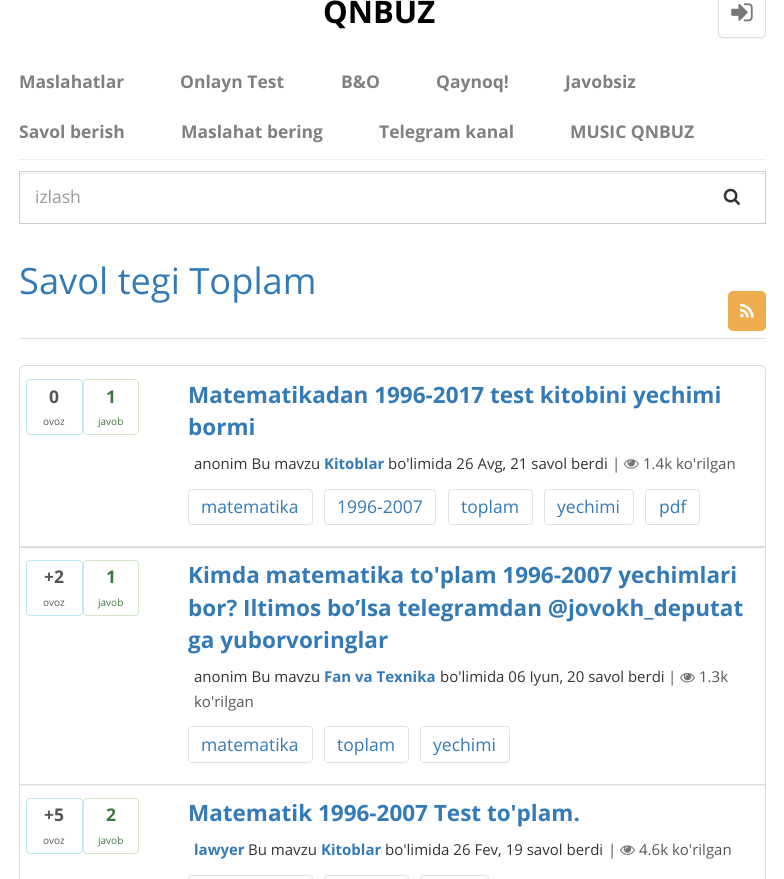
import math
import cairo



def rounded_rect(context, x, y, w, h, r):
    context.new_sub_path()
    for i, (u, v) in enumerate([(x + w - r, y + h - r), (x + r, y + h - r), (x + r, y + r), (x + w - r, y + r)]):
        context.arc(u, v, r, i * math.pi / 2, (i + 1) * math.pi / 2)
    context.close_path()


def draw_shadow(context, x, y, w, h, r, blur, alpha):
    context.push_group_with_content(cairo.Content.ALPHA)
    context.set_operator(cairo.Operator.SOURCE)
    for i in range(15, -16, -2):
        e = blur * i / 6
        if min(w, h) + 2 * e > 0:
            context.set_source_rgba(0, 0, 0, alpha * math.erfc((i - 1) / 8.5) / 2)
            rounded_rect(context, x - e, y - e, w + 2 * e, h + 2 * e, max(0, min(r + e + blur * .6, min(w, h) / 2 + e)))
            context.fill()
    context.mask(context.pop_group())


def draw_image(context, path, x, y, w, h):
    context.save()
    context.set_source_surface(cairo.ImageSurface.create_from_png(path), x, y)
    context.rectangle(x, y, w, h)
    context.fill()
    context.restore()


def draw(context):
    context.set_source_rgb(1, 1, 1)
    context.paint()
    context.set_source_rgb(0, 0, 0)
    draw_shadow(context, 718, -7, 48, 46, 5, 0.5, 0.05)
    context.set_source_rgb(1, 1, 1)
    rounded_rect(context, 718.5, -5.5, 47, 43, 4.5)
    context.fill_preserve()
    context.set_source_rgb(221 / 255, 221 / 255, 221 / 255)
    context.set_line_width(1)
    context.stroke()
    draw_image(context, "images/1.png", 731, 3, 22, 19)
    context.set_source_rgb(238 / 255, 238 / 255, 238 / 255)
    context.rectangle(19, 159, 747, 1)
    context.fill()
    context.set_source_rgb(236 / 255, 236 / 255, 236 / 255)
    context.rectangle(20, 173, 745, 1)
    context.fill()
    context.rectangle(19.5, 171.5, 746, 52)
    context.set_source_rgb(204 / 255, 204 / 255, 204 / 255)
    context.stroke()
    draw_image(context, "images/2.png", 723, 188, 17, 17)
    context.set_source_rgb(226 / 255, 226 / 255, 226 / 255)
    context.rectangle(19, 338, 747, 1)
    context.fill()
    context.set_source_rgb(240 / 255, 173 / 255, 78 / 255)
    rounded_rect(context, 728, 291, 38, 40, 5)
    context.fill()
    draw_image(context, "images/3.png", 740, 303, 14, 15)
    context.save()
    context.rectangle(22, 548, 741, 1)
    context.clip()
    context.set_source_rgb(0, 0, 0)
    draw_shadow(context, 19, 366, 747, 183, 6, 0.5, 0.05)
    context.restore()
    context.new_path()
    context.move_to(25, 365.5)
    context.line_to(760, 365.5)
    context.curve_to(763, 365.5, 765.5, 368, 765.5, 371)
    context.line_to(765.5, 547.5)
    context.line_to(19.5, 547.5)
    context.line_to(19.5, 371)
    context.curve_to(19.5, 368, 22, 365.5, 25, 365.5)
    context.close_path()
    context.set_source_rgb(221 / 255, 221 / 255, 221 / 255)
    context.stroke()
    rounded_rect(context, 26.5, 379.5, 56, 55, 3.5)
    context.set_source_rgb(188 / 255, 232 / 255, 241 / 255)
    context.stroke()
    rounded_rect(context, 83.5, 379.5, 55, 55, 3.5)
    context.set_source_rgb(214 / 255, 233 / 255, 198 / 255)
    context.stroke()
    draw_image(context, "images/4.png", 623, 459, 16, 10)
    rounded_rect(context, 188.5, 489.5, 124, 35, 3.5)
    context.set_source_rgb(226 / 255, 226 / 255, 226 / 255)
    context.stroke()
    rounded_rect(context, 324.5, 489.5, 111, 35, 3.5)
    context.stroke()
    rounded_rect(context, 448.5, 489.5, 84, 35, 3.5)
    context.stroke()
    rounded_rect(context, 544.5, 489.5, 89, 35, 3.5)
    context.stroke()
    rounded_rect(context, 645.5, 489.5, 54, 35, 3.5)
    context.stroke()
    context.save()
    context.rectangle(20, 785, 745, 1)
    context.clip()
    context.set_source_rgb(0, 0, 0)
    draw_shadow(context, 19, 548, 747, 238, 0, 0.5, 0.05)
    context.restore()
    context.rectangle(19.5, 546.5, 746, 238)
    context.set_source_rgb(221 / 255, 221 / 255, 221 / 255)
    context.stroke()
    rounded_rect(context, 26.5, 560.5, 56, 55, 3.5)
    context.set_source_rgb(188 / 255, 232 / 255, 241 / 255)
    context.stroke()
    rounded_rect(context, 83.5, 560.5, 55, 55, 3.5)
    context.set_source_rgb(214 / 255, 233 / 255, 198 / 255)
    context.stroke()
    draw_image(context, "images/5.png", 680, 672, 15, 11)
    rounded_rect(context, 188.5, 726.5, 124, 36, 3.5)
    context.set_source_rgb(226 / 255, 226 / 255, 226 / 255)
    context.stroke()
    rounded_rect(context, 324.5, 726.5, 84, 36, 3.5)
    context.stroke()
    rounded_rect(context, 420.5, 726.5, 89, 36, 3.5)
    context.stroke()
    context.rectangle(19.5, 784.5, 746, 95)
    context.set_source_rgb(221 / 255, 221 / 255, 221 / 255)
    context.stroke()
    rounded_rect(context, 26.5, 798.5, 56, 55, 3.5)
    context.set_source_rgb(188 / 255, 232 / 255, 241 / 255)
    context.stroke()
    rounded_rect(context, 83.5, 798.5, 55, 55, 3.5)
    context.set_source_rgb(214 / 255, 233 / 255, 198 / 255)
    context.stroke()
    draw_image(context, "images/6.png", 620, 845, 15, 10)
    rounded_rect(context, 188.5, 875.5, 124, 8, 3.5)
    context.set_source_rgb(226 / 255, 226 / 255, 226 / 255)
    context.stroke()
    rounded_rect(context, 324.5, 875.5, 84, 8, 3.5)
    context.stroke()
    rounded_rect(context, 420.5, 875.5, 68, 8, 3.5)
    context.stroke()
    context.select_font_face("Open Sans", cairo.FontSlant.NORMAL, cairo.FontWeight.BOLD)
    context.set_font_size(31)
    context.set_source_rgb(0, 0, 0)
    context.move_to(323, 23)
    context.show_text("QNBUZ")
    context.set_font_size(17.5)
    context.set_source_rgb(128 / 255, 128 / 255, 128 / 255)
    context.move_to(19, 88)
    context.show_text("Maslahatlar")
    context.move_to(180, 88)
    context.show_text("Onlayn Test")
    context.move_to(341, 88)
    context.show_text("В&О")
    context.move_to(436, 88)
    context.show_text("Qaynoq!")
    context.move_to(565, 88)
    context.show_text("Javobsiz")
    context.move_to(19, 138)
    context.show_text("Savol berish")
    context.move_to(181, 138)
    context.show_text("Maslahat bering")
    context.move_to(379, 138)
    context.show_text("Telegram kanal")
    context.move_to(570, 138)
    context.show_text("MUSIC QNBUZ")
    context.select_font_face("Open Sans")
    context.set_source_rgb(153 / 255, 153 / 255, 153 / 255)
    context.move_to(35, 203)
    context.show_text("izlash")
    context.set_font_size(36.25)
    context.set_source_rgb(51 / 255, 122 / 255, 183 / 255)
    context.move_to(19, 294)
    context.show_text("Savol tegi Toplam")
    context.select_font_face("Open Sans", cairo.FontSlant.NORMAL, cairo.FontWeight.BOLD)
    context.set_font_size(17.5)
    context.set_source_rgb(85 / 255, 85 / 255, 85 / 255)
    context.move_to(49, 403)
    context.show_text("0")
    context.select_font_face("Open Sans")
    context.set_font_size(10)
    context.move_to(43, 425)
    context.show_text("ovoz")
    context.select_font_face("Open Sans", cairo.FontSlant.NORMAL, cairo.FontWeight.BOLD)
    context.set_font_size(17.5)
    context.set_source_rgb(60 / 255, 118 / 255, 61 / 255)
    context.move_to(106, 403)
    context.show_text("1")
    context.select_font_face("Open Sans")
    context.set_font_size(10)
    context.move_to(98, 425)
    context.show_text("javob")
    context.select_font_face("Open Sans", cairo.FontSlant.NORMAL, cairo.FontWeight.BOLD)
    context.set_font_size(22.5)
    context.set_source_rgb(51 / 255, 122 / 255, 183 / 255)
    context.move_to(188, 403)
    context.show_text("Matematikadan 1996-2017 test kitobini yechimi")
    context.move_to(188, 435)
    context.show_text("bormi")
    context.select_font_face("Open Sans")
    context.set_font_size(15)
    context.set_source_rgb(51 / 255, 51 / 255, 51 / 255)
    context.move_to(194, 469)
    context.show_text("anonim Bu mavzu")
    context.select_font_face("Open Sans", cairo.FontSlant.NORMAL, cairo.FontWeight.BOLD)
    context.set_source_rgb(51 / 255, 122 / 255, 183 / 255)
    context.move_to(324, 469)
    context.show_text("Kitoblar")
    context.select_font_face("Open Sans")
    context.set_source_rgb(51 / 255, 51 / 255, 51 / 255)
    context.move_to(388, 469)
    context.show_text("bo'limida 26 Avg, 21 savol berdi")
    context.set_source_rgb(85 / 255, 85 / 255, 85 / 255)
    context.move_to(612, 469)
    context.show_text("|")
    context.move_to(643, 469)
    context.show_text("1.4k ko'rilgan")
    context.set_font_size(17.5)
    context.set_source_rgb(51 / 255, 122 / 255, 183 / 255)
    context.move_to(201, 513)
    context.show_text("matematika")
    context.move_to(337, 513)
    context.show_text("1996-2007")
    context.move_to(461, 513)
    context.show_text("toplam")
    context.move_to(557, 513)
    context.show_text("yechimi")
    context.move_to(659, 513)
    context.show_text("pdf")
    context.select_font_face("Open Sans", cairo.FontSlant.NORMAL, cairo.FontWeight.BOLD)
    context.set_source_rgb(85 / 255, 85 / 255, 85 / 255)
    context.move_to(44, 583)
    context.show_text("+2")
    context.select_font_face("Open Sans")
    context.set_font_size(10)
    context.move_to(43, 606)
    context.show_text("ovoz")
    context.select_font_face("Open Sans", cairo.FontSlant.NORMAL, cairo.FontWeight.BOLD)
    context.set_font_size(17.5)
    context.set_source_rgb(60 / 255, 118 / 255, 61 / 255)
    context.move_to(106, 583)
    context.show_text("1")
    context.select_font_face("Open Sans")
    context.set_font_size(10)
    context.move_to(98, 606)
    context.show_text("javob")
    context.select_font_face("Open Sans", cairo.FontSlant.NORMAL, cairo.FontWeight.BOLD)
    context.set_font_size(22.5)
    context.set_source_rgb(51 / 255, 122 / 255, 183 / 255)
    context.move_to(188, 583)
    context.show_text("Kimda matematika to'plam 1996-2007 yechimlari")
    context.move_to(188, 616)
    context.show_text("bor? Iltimos bo’lsa telegramdan @jovokh_deputat")
    context.move_to(188, 648)
    context.show_text("ga yuborvoringlar")
    context.select_font_face("Open Sans")
    context.set_font_size(15)
    context.set_source_rgb(85 / 255, 85 / 255, 85 / 255)
    context.move_to(668, 682)
    context.show_text("|")
    context.move_to(699, 682)
    context.show_text("1.3k")
    context.move_to(194, 707)
    context.show_text("ko'rilgan")
    context.set_source_rgb(51 / 255, 51 / 255, 51 / 255)
    context.move_to(194, 682)
    context.show_text("anonim Bu mavzu")
    context.select_font_face("Open Sans", cairo.FontSlant.NORMAL, cairo.FontWeight.BOLD)
    context.set_source_rgb(51 / 255, 122 / 255, 183 / 255)
    context.move_to(324, 682)
    context.show_text("Fan va Texnika")
    context.select_font_face("Open Sans")
    context.set_source_rgb(51 / 255, 51 / 255, 51 / 255)
    context.move_to(440, 682)
    context.show_text("bo'limida 06 Iyun, 20 savol berdi")
    context.set_font_size(17.5)
    context.set_source_rgb(51 / 255, 122 / 255, 183 / 255)
    context.move_to(201, 751)
    context.show_text("matematika")
    context.move_to(337, 751)
    context.show_text("toplam")
    context.move_to(433, 751)
    context.show_text("yechimi")
    context.select_font_face("Open Sans", cairo.FontSlant.NORMAL, cairo.FontWeight.BOLD)
    context.set_source_rgb(85 / 255, 85 / 255, 85 / 255)
    context.move_to(44, 821)
    context.show_text("+5")
    context.select_font_face("Open Sans")
    context.set_font_size(10)
    context.move_to(43, 844)
    context.show_text("ovoz")
    context.select_font_face("Open Sans", cairo.FontSlant.NORMAL, cairo.FontWeight.BOLD)
    context.set_font_size(17.5)
    context.set_source_rgb(60 / 255, 118 / 255, 61 / 255)
    context.move_to(106, 821)
    context.show_text("2")
    context.select_font_face("Open Sans")
    context.set_font_size(10)
    context.move_to(98, 844)
    context.show_text("javob")
    context.select_font_face("Open Sans", cairo.FontSlant.NORMAL, cairo.FontWeight.BOLD)
    context.set_font_size(22.5)
    context.set_source_rgb(51 / 255, 122 / 255, 183 / 255)
    context.move_to(188, 821)
    context.show_text("Matematik 1996-2007 Test to'plam.")
    context.set_font_size(15)
    context.move_to(194, 855)
    context.show_text("lawyer")
    context.select_font_face("Open Sans")
    context.set_source_rgb(51 / 255, 51 / 255, 51 / 255)
    context.move_to(248, 855)
    context.show_text("Bu mavzu")
    context.select_font_face("Open Sans", cairo.FontSlant.NORMAL, cairo.FontWeight.BOLD)
    context.set_source_rgb(51 / 255, 122 / 255, 183 / 255)
    context.move_to(321, 855)
    context.show_text("Kitoblar")
    context.select_font_face("Open Sans")
    context.set_source_rgb(51 / 255, 51 / 255, 51 / 255)
    context.move_to(385, 855)
    context.show_text("bo'limida 26 Fev, 19 savol berdi")
    context.set_source_rgb(85 / 255, 85 / 255, 85 / 255)
    context.move_to(608, 855)
    context.show_text("|")
    context.move_to(639, 855)
    context.show_text("4.6k ko'rilgan")


surface = cairo.ImageSurface(cairo.Format.RGB24, 784, 879)
context = cairo.Context(surface)
options = cairo.FontOptions()
options.set_hint_metrics(cairo.HintMetrics.OFF)
options.set_hint_style(cairo.HintStyle.NONE)
context.set_font_options(options)
context.set_miter_limit(4)
draw(context)
surface.write_to_png("out.png")
